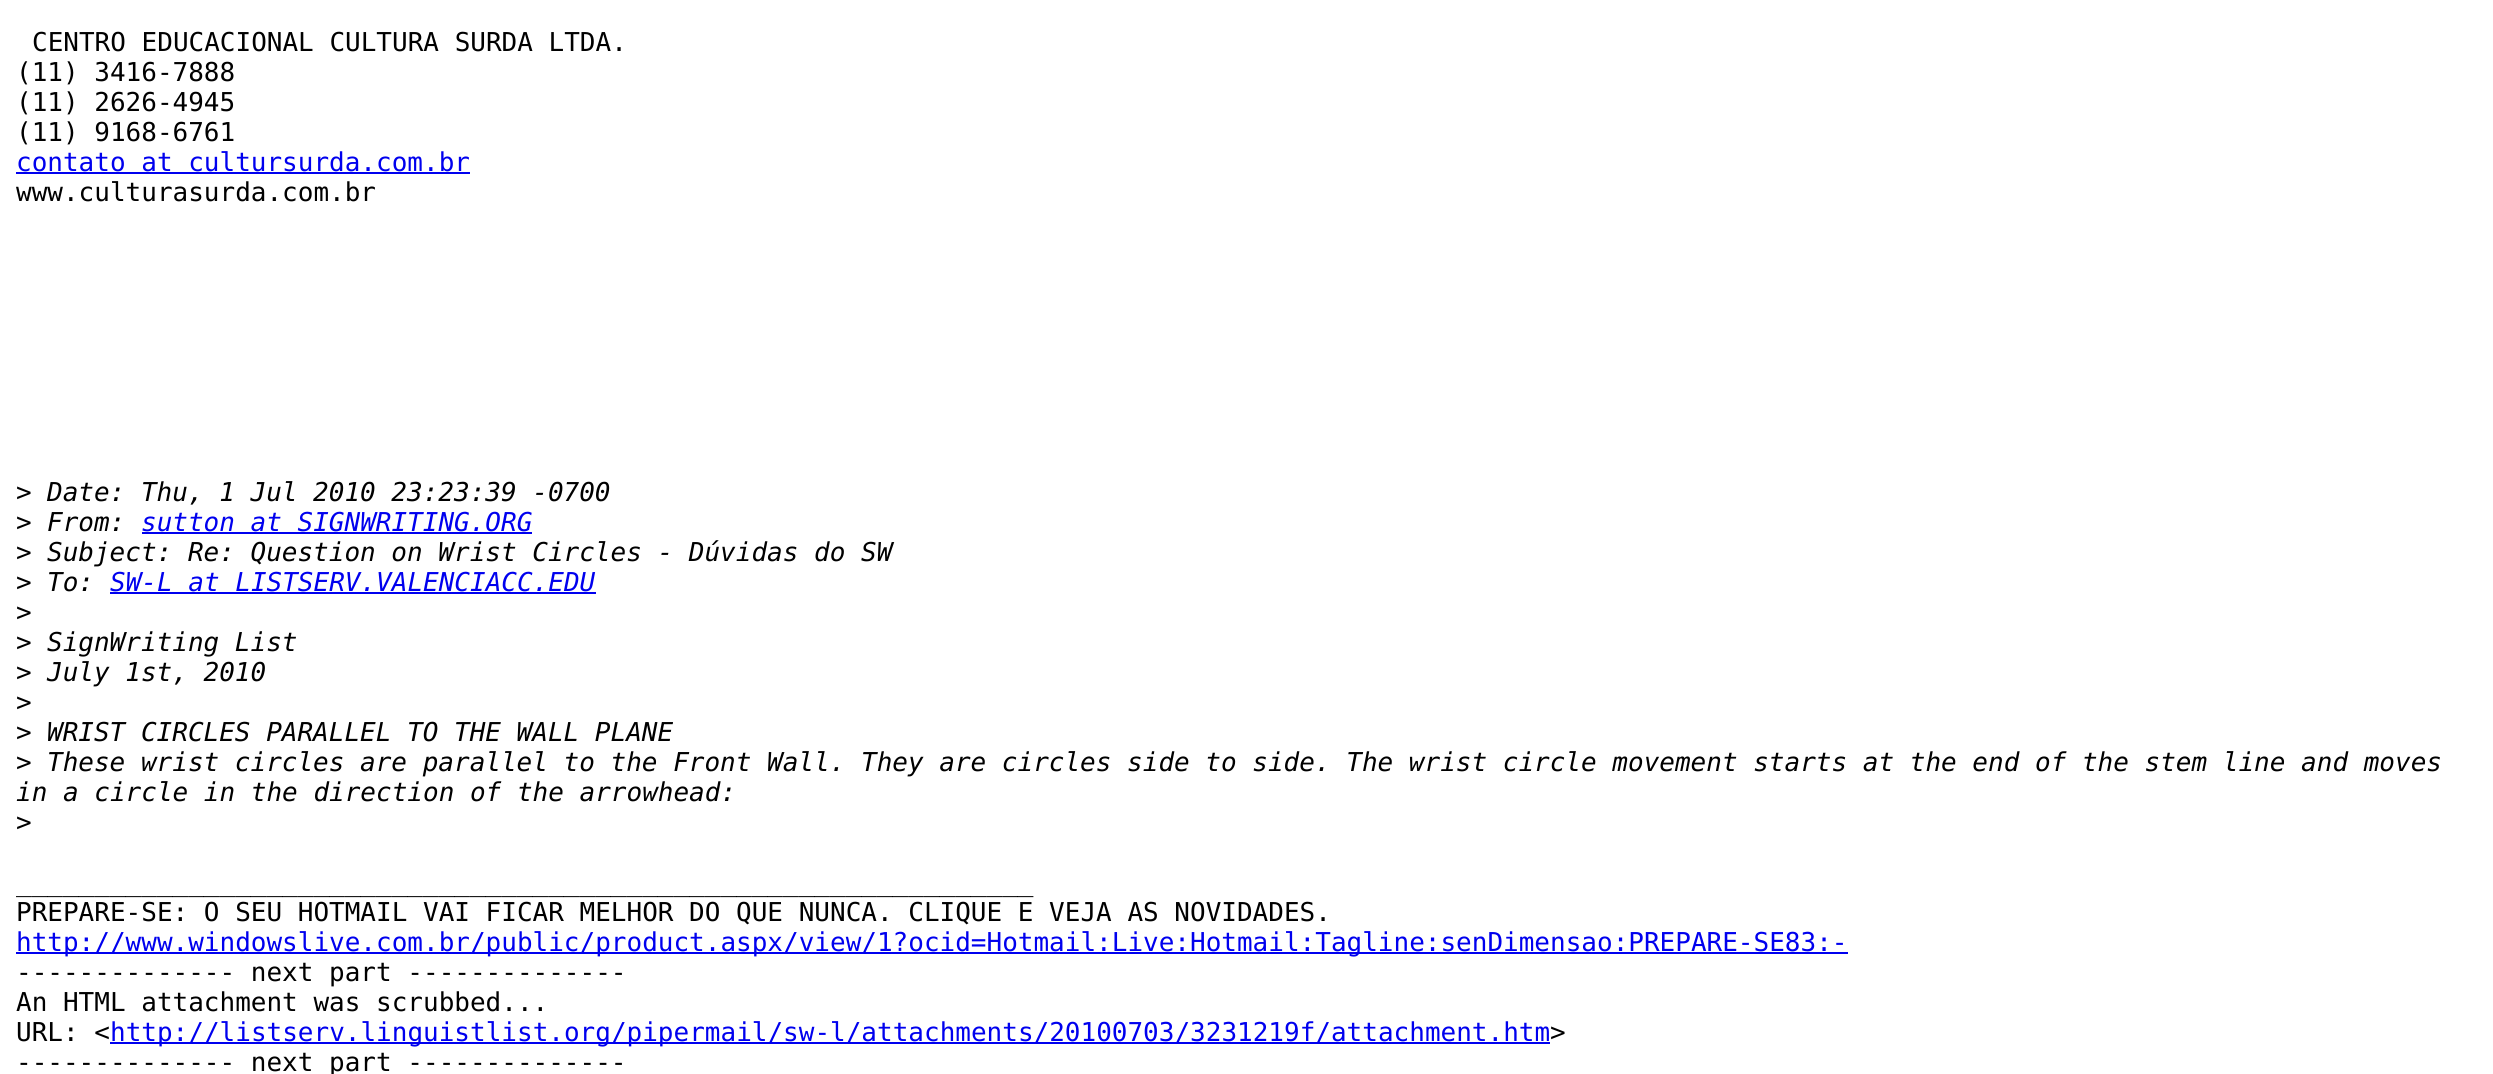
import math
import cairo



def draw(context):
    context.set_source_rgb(1, 1, 1)
    context.paint()
    context.set_source_rgb(0, 0, 238 / 255)
    context.rectangle(16, 172, 454, 2)
    context.fill()
    context.rectangle(142, 532, 390, 2)
    context.fill()
    context.rectangle(110, 592, 486, 2)
    context.fill()
    context.rectangle(16, 952, 1832, 2)
    context.fill()
    context.rectangle(110, 1042, 1440, 2)
    context.fill()
    context.select_font_face("DejaVu Sans Mono")
    context.set_font_size(26)
    context.set_source_rgb(0, 0, 0)
    context.move_to(32, 51)
    context.show_text("CENTRO EDUCACIONAL CULTURA SURDA LTDA.")
    context.move_to(16, 81)
    context.show_text("(11) 3416-7888")
    context.move_to(16, 111)
    context.show_text("(11) 2626-4945")
    context.move_to(16, 141)
    context.show_text("(11) 9168-6761")
    context.set_source_rgb(0, 0, 238 / 255)
    context.move_to(16, 171)
    context.show_text("contato at cultursurda.com.br")
    context.set_source_rgb(0, 0, 0)
    context.move_to(16, 201)
    context.show_text("www.culturasurda.com.br")
    context.move_to(16, 501)
    context.show_text(">")
    context.select_font_face("DejaVu Sans Mono", cairo.FontSlant.ITALIC)
    context.move_to(47, 501)
    context.show_text("Date: Thu, 1 Jul 2010 23:23:39 -0700")
    context.select_font_face("DejaVu Sans Mono")
    context.move_to(16, 531)
    context.show_text(">")
    context.select_font_face("DejaVu Sans Mono", cairo.FontSlant.ITALIC)
    context.move_to(47, 531)
    context.show_text("From:")
    context.set_source_rgb(0, 0, 238 / 255)
    context.move_to(141, 531)
    context.show_text("sutton at SIGNWRITING.ORG")
    context.select_font_face("DejaVu Sans Mono")
    context.set_source_rgb(0, 0, 0)
    context.move_to(16, 561)
    context.show_text(">")
    context.select_font_face("DejaVu Sans Mono", cairo.FontSlant.ITALIC)
    context.move_to(47, 561)
    context.show_text("Subject: Re: Question on Wrist Circles - Dúvidas do SW")
    context.select_font_face("DejaVu Sans Mono")
    context.move_to(16, 591)
    context.show_text(">")
    context.select_font_face("DejaVu Sans Mono", cairo.FontSlant.ITALIC)
    context.move_to(47, 591)
    context.show_text("To:")
    context.set_source_rgb(0, 0, 238 / 255)
    context.move_to(110, 591)
    context.show_text("SW-L at LISTSERV.VALENCIACC.EDU")
    context.select_font_face("DejaVu Sans Mono")
    context.set_source_rgb(0, 0, 0)
    context.move_to(16, 621)
    context.show_text(">")
    context.move_to(16, 651)
    context.show_text(">")
    context.select_font_face("DejaVu Sans Mono", cairo.FontSlant.ITALIC)
    context.move_to(47, 651)
    context.show_text("SignWriting List")
    context.select_font_face("DejaVu Sans Mono")
    context.move_to(16, 681)
    context.show_text(">")
    context.select_font_face("DejaVu Sans Mono", cairo.FontSlant.ITALIC)
    context.move_to(47, 681)
    context.show_text("July 1st, 2010")
    context.select_font_face("DejaVu Sans Mono")
    context.move_to(16, 711)
    context.show_text(">")
    context.move_to(16, 741)
    context.show_text(">")
    context.select_font_face("DejaVu Sans Mono", cairo.FontSlant.ITALIC)
    context.move_to(47, 741)
    context.show_text("WRIST CIRCLES PARALLEL TO THE WALL PLANE")
    context.select_font_face("DejaVu Sans Mono")
    context.move_to(16, 771)
    context.show_text(">")
    context.select_font_face("DejaVu Sans Mono", cairo.FontSlant.ITALIC)
    context.move_to(47, 771)
    context.show_text("These wrist circles are parallel to the Front Wall. They are circles side to side. The wrist circle movement starts at the end of the stem line and moves")
    context.move_to(16, 801)
    context.show_text("in a circle in the direction of the arrowhead:")
    context.select_font_face("DejaVu Sans Mono")
    context.move_to(16, 831)
    context.show_text(">")
    context.move_to(16, 891)
    context.show_text("_________________________________________________________________")
    context.move_to(16, 921)
    context.show_text("PREPARE-SE: O SEU HOTMAIL VAI FICAR MELHOR DO QUE NUNCA. CLIQUE E VEJA AS NOVIDADES.")
    context.set_source_rgb(0, 0, 238 / 255)
    context.move_to(16, 951)
    context.show_text("http://www.windowslive.com.br/public/product.aspx/view/1?ocid=Hotmail:Live:Hotmail:Tagline:senDimensao:PREPARE-SE83:-")
    context.set_source_rgb(0, 0, 0)
    context.move_to(16, 981)
    context.show_text("-------------- next part --------------")
    context.move_to(16, 1011)
    context.show_text("An HTML attachment was scrubbed...")
    context.move_to(16, 1041)
    context.show_text("URL: <")
    context.set_source_rgb(0, 0, 238 / 255)
    context.move_to(110, 1041)
    context.show_text("http://listserv.linguistlist.org/pipermail/sw-l/attachments/20100703/3231219f/attachment.htm")
    context.set_source_rgb(0, 0, 0)
    context.move_to(1550, 1041)
    context.show_text(">")
    context.move_to(16, 1071)
    context.show_text("-------------- next part --------------")


surface = cairo.ImageSurface(cairo.Format.RGB24, 2493, 1074)
context = cairo.Context(surface)
options = cairo.FontOptions()
options.set_hint_metrics(cairo.HintMetrics.OFF)
options.set_hint_style(cairo.HintStyle.NONE)
context.set_font_options(options)
context.set_miter_limit(4)
draw(context)
surface.write_to_png("out.png")
